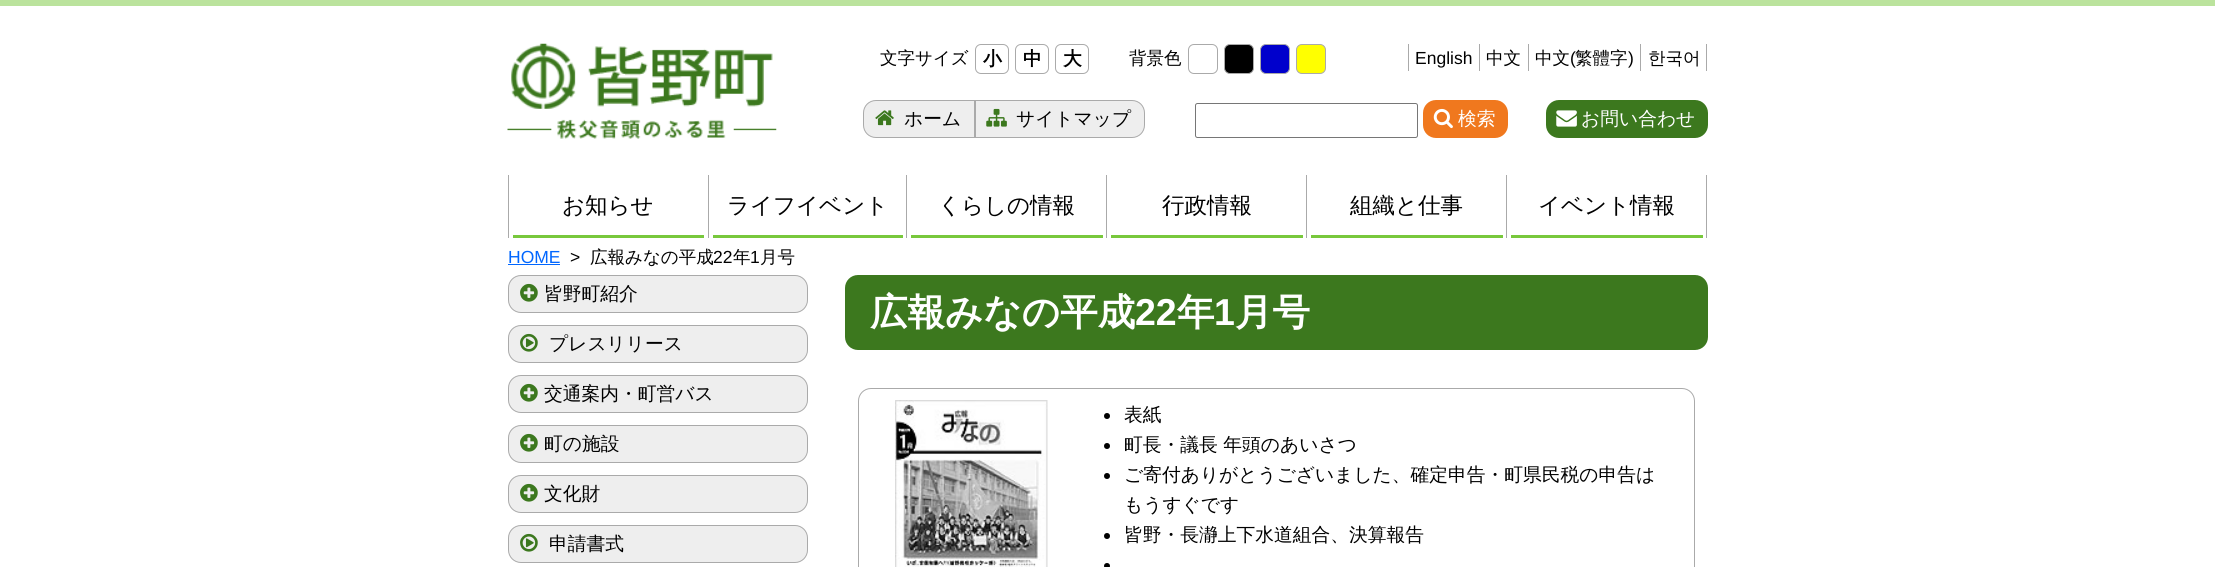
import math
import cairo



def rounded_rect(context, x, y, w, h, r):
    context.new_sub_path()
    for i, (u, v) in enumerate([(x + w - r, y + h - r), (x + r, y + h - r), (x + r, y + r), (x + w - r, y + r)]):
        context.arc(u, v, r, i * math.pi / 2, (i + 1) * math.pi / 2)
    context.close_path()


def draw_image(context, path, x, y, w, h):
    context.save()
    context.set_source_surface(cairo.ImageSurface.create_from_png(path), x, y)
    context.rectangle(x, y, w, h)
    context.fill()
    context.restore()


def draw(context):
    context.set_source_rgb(1, 1, 1)
    context.paint()
    context.set_source_rgb(187 / 255, 227 / 255, 157 / 255)
    context.rectangle(0, 0, 2215, 6)
    context.fill()
    draw_image(context, "images/1.png", 507, 43, 270, 96)
    rounded_rect(context, 975.5, 44.5, 33, 29, 5.5)
    context.set_source_rgb(170 / 255, 170 / 255, 170 / 255)
    context.set_line_width(1)
    context.stroke()
    rounded_rect(context, 1015.5, 44.5, 33, 29, 5.5)
    context.stroke()
    rounded_rect(context, 1055.5, 44.5, 33, 29, 5.5)
    context.stroke()
    rounded_rect(context, 1188.5, 44.5, 29, 29, 5.5)
    context.stroke()
    context.set_source_rgb(0, 0, 0)
    rounded_rect(context, 1224.5, 44.5, 29, 29, 5.5)
    context.fill_preserve()
    context.set_source_rgb(170 / 255, 170 / 255, 170 / 255)
    context.stroke()
    context.set_source_rgb(0, 0, 204 / 255)
    rounded_rect(context, 1260.5, 44.5, 29, 29, 5.5)
    context.fill_preserve()
    context.set_source_rgb(170 / 255, 170 / 255, 170 / 255)
    context.stroke()
    context.set_source_rgb(1, 1, 0)
    rounded_rect(context, 1296.5, 44.5, 29, 29, 5.5)
    context.fill_preserve()
    context.set_source_rgb(170 / 255, 170 / 255, 170 / 255)
    context.stroke()
    context.rectangle(1408, 44, 1, 27)
    context.fill()
    context.rectangle(1479, 44, 1, 27)
    context.fill()
    context.rectangle(1528, 44, 1, 27)
    context.fill()
    context.rectangle(1640, 44, 1, 27)
    context.fill()
    context.rectangle(1706, 44, 1, 27)
    context.fill()
    context.set_source_rgb(238 / 255, 238 / 255, 238 / 255)
    context.new_path()
    context.move_to(876, 100.5)
    context.line_to(974.5, 100.5)
    context.line_to(974.5, 137.5)
    context.line_to(876, 137.5)
    context.curve_to(869, 137.5, 863.5, 132, 863.5, 125)
    context.line_to(863.5, 113)
    context.curve_to(863.5, 106, 869, 100.5, 876, 100.5)
    context.close_path()
    context.fill_preserve()
    context.set_source_rgb(170 / 255, 170 / 255, 170 / 255)
    context.stroke()
    draw_image(context, "images/2.png", 875, 110, 19, 16)
    context.set_source_rgb(238 / 255, 238 / 255, 238 / 255)
    context.new_path()
    context.move_to(975.5, 100.5)
    context.line_to(1132, 100.5)
    context.curve_to(1139, 100.5, 1144.5, 106, 1144.5, 113)
    context.line_to(1144.5, 125)
    context.curve_to(1144.5, 132, 1139, 137.5, 1132, 137.5)
    context.line_to(975.5, 137.5)
    context.close_path()
    context.fill_preserve()
    context.set_source_rgb(170 / 255, 170 / 255, 170 / 255)
    context.stroke()
    draw_image(context, "images/3.png", 986, 108, 21, 19)
    rounded_rect(context, 1195.5, 103.5, 222, 34, 2)
    context.set_source_rgb(118 / 255, 118 / 255, 118 / 255)
    context.stroke()
    context.set_source_rgb(240 / 255, 120 / 255, 30 / 255)
    rounded_rect(context, 1423, 100, 85, 38, 13)
    context.fill()
    draw_image(context, "images/4.png", 1433, 108, 20, 21)
    context.set_source_rgb(60 / 255, 120 / 255, 30 / 255)
    rounded_rect(context, 1546, 100, 162, 38, 13)
    context.fill()
    draw_image(context, "images/5.png", 1556, 110, 21, 17)
    context.set_source_rgb(170 / 255, 170 / 255, 170 / 255)
    context.rectangle(508, 175, 1, 63)
    context.fill()
    context.rectangle(708, 175, 1, 63)
    context.fill()
    context.set_source_rgb(120 / 255, 200 / 255, 60 / 255)
    context.rectangle(513, 235, 191, 3)
    context.fill()
    context.set_source_rgb(170 / 255, 170 / 255, 170 / 255)
    context.rectangle(906, 175, 1, 63)
    context.fill()
    context.set_source_rgb(120 / 255, 200 / 255, 60 / 255)
    context.rectangle(713, 235, 190, 3)
    context.fill()
    context.set_source_rgb(170 / 255, 170 / 255, 170 / 255)
    context.rectangle(1106, 175, 1, 63)
    context.fill()
    context.set_source_rgb(120 / 255, 200 / 255, 60 / 255)
    context.rectangle(911, 235, 192, 3)
    context.fill()
    context.set_source_rgb(170 / 255, 170 / 255, 170 / 255)
    context.rectangle(1306, 175, 1, 63)
    context.fill()
    context.set_source_rgb(120 / 255, 200 / 255, 60 / 255)
    context.rectangle(1111, 235, 192, 3)
    context.fill()
    context.set_source_rgb(170 / 255, 170 / 255, 170 / 255)
    context.rectangle(1506, 175, 1, 63)
    context.fill()
    context.set_source_rgb(120 / 255, 200 / 255, 60 / 255)
    context.rectangle(1311, 235, 192, 3)
    context.fill()
    context.set_source_rgb(170 / 255, 170 / 255, 170 / 255)
    context.rectangle(1706, 175, 1, 63)
    context.fill()
    context.set_source_rgb(120 / 255, 200 / 255, 60 / 255)
    context.rectangle(1511, 235, 192, 3)
    context.fill()
    context.set_source_rgb(0, 102 / 255, 1)
    context.rectangle(508, 264, 52, 1)
    context.fill()
    context.set_source_rgb(238 / 255, 238 / 255, 238 / 255)
    rounded_rect(context, 508.5, 275.5, 299, 37, 12.5)
    context.fill_preserve()
    context.set_source_rgb(170 / 255, 170 / 255, 170 / 255)
    context.stroke()
    draw_image(context, "images/6.png", 520, 283, 18, 19)
    context.set_source_rgb(238 / 255, 238 / 255, 238 / 255)
    rounded_rect(context, 508.5, 325.5, 299, 37, 12.5)
    context.fill_preserve()
    context.set_source_rgb(170 / 255, 170 / 255, 170 / 255)
    context.stroke()
    draw_image(context, "images/7.png", 520, 333, 18, 19)
    context.set_source_rgb(238 / 255, 238 / 255, 238 / 255)
    rounded_rect(context, 508.5, 375.5, 299, 37, 12.5)
    context.fill_preserve()
    context.set_source_rgb(170 / 255, 170 / 255, 170 / 255)
    context.stroke()
    draw_image(context, "images/6.png", 520, 383, 18, 19)
    context.set_source_rgb(238 / 255, 238 / 255, 238 / 255)
    rounded_rect(context, 508.5, 425.5, 299, 37, 12.5)
    context.fill_preserve()
    context.set_source_rgb(170 / 255, 170 / 255, 170 / 255)
    context.stroke()
    draw_image(context, "images/6.png", 520, 433, 18, 19)
    context.set_source_rgb(238 / 255, 238 / 255, 238 / 255)
    rounded_rect(context, 508.5, 475.5, 299, 37, 12.5)
    context.fill_preserve()
    context.set_source_rgb(170 / 255, 170 / 255, 170 / 255)
    context.stroke()
    draw_image(context, "images/6.png", 520, 483, 18, 19)
    context.set_source_rgb(238 / 255, 238 / 255, 238 / 255)
    rounded_rect(context, 508.5, 525.5, 299, 37, 12.5)
    context.fill_preserve()
    context.set_source_rgb(170 / 255, 170 / 255, 170 / 255)
    context.stroke()
    draw_image(context, "images/7.png", 520, 533, 18, 19)
    context.set_source_rgb(60 / 255, 120 / 255, 30 / 255)
    rounded_rect(context, 845, 275, 863, 75, 13)
    context.fill()
    rounded_rect(context, 858.5, 388.5, 836, 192, 12.5)
    context.set_source_rgb(170 / 255, 170 / 255, 170 / 255)
    context.stroke()
    draw_image(context, "images/8.png", 895, 400, 153, 167)
    context.set_source_rgb(0, 0, 0)
    context.arc(1107, 416, 3, 0, 2 * math.pi)
    context.fill()
    context.arc(1107, 446, 3, 0, 2 * math.pi)
    context.fill()
    context.arc(1107, 476, 3, 0, 2 * math.pi)
    context.fill()
    context.arc(1107, 536, 3, 0, 2 * math.pi)
    context.fill()
    context.arc(1107, 566, 3, 0, 2 * math.pi)
    context.fill()
    context.select_font_face("WenQuanYi Zen Hei Medium")
    context.set_font_size(17.5)
    context.move_to(880, 64)
    context.show_text("文字サイズ")
    context.select_font_face("WenQuanYi Zen Hei", cairo.FontSlant.NORMAL, cairo.FontWeight.BOLD)
    context.set_font_size(18.75)
    context.move_to(983, 65)
    context.show_text("小")
    context.move_to(1023, 65)
    context.show_text("中")
    context.move_to(1063, 65)
    context.show_text("大")
    context.select_font_face("WenQuanYi Zen Hei Medium")
    context.set_font_size(17.5)
    context.move_to(1129, 64)
    context.show_text("背景色")
    context.select_font_face("Liberation Sans")
    context.move_to(1415, 64)
    context.show_text("English")
    context.select_font_face("WenQuanYi Zen Hei Medium")
    context.move_to(1486, 64)
    context.show_text("中文")
    context.move_to(1535, 64)
    context.show_text("中文")
    context.select_font_face("Liberation Sans")
    context.move_to(1570, 64)
    context.show_text("(")
    context.select_font_face("WenQuanYi Zen Hei Medium")
    context.move_to(1575, 64)
    context.show_text("繁體字")
    context.select_font_face("Liberation Sans")
    context.move_to(1628, 64)
    context.show_text(")")
    context.select_font_face("WenQuanYi Zen Hei Medium")
    context.move_to(1648, 64)
    context.show_text("한국어")
    context.set_font_size(18.75)
    context.move_to(904, 125)
    context.show_text("ホーム")
    context.move_to(1016, 125)
    context.show_text("サイトマップ")
    context.set_source_rgb(1, 1, 1)
    context.move_to(1458, 125)
    context.show_text("検索")
    context.move_to(1581, 125)
    context.show_text("お問い合わせ")
    context.set_font_size(22.5)
    context.set_source_rgb(0, 0, 0)
    context.move_to(562, 213)
    context.show_text("お知らせ")
    context.move_to(727, 213)
    context.show_text("ライフイベント")
    context.move_to(938, 213)
    context.show_text("くらしの情報")
    context.move_to(1162, 213)
    context.show_text("行政情報")
    context.move_to(1350, 213)
    context.show_text("組織と仕事")
    context.move_to(1538, 213)
    context.show_text("イベント情報")
    context.select_font_face("Liberation Sans")
    context.set_font_size(17.5)
    context.set_source_rgb(0, 102 / 255, 1)
    context.move_to(508, 263)
    context.show_text("HOME")
    context.set_source_rgb(0, 0, 0)
    context.move_to(570, 263)
    context.show_text(">")
    context.select_font_face("WenQuanYi Zen Hei Medium")
    context.move_to(590, 263)
    context.show_text("広報みなの平成")
    context.select_font_face("Liberation Sans")
    context.move_to(713, 263)
    context.show_text("22")
    context.select_font_face("WenQuanYi Zen Hei Medium")
    context.move_to(733, 263)
    context.show_text("年")
    context.select_font_face("Liberation Sans")
    context.move_to(750, 263)
    context.show_text("1")
    context.select_font_face("WenQuanYi Zen Hei Medium")
    context.move_to(760, 263)
    context.show_text("月号")
    context.set_font_size(18.75)
    context.move_to(544, 300)
    context.show_text("皆野町紹介")
    context.move_to(549, 350)
    context.show_text("プレスリリース")
    context.move_to(544, 400)
    context.show_text("交通案内・町営バス")
    context.move_to(544, 450)
    context.show_text("町の施設")
    context.move_to(544, 500)
    context.show_text("文化財")
    context.move_to(549, 550)
    context.show_text("申請書式")
    context.select_font_face("WenQuanYi Zen Hei", cairo.FontSlant.NORMAL, cairo.FontWeight.BOLD)
    context.set_font_size(37.5)
    context.set_source_rgb(1, 1, 1)
    context.move_to(870, 325)
    context.show_text("広報みなの平成")
    context.select_font_face("Liberation Sans", cairo.FontSlant.NORMAL, cairo.FontWeight.BOLD)
    context.move_to(1135, 325)
    context.show_text("22")
    context.select_font_face("WenQuanYi Zen Hei", cairo.FontSlant.NORMAL, cairo.FontWeight.BOLD)
    context.move_to(1177, 325)
    context.show_text("年")
    context.select_font_face("Liberation Sans", cairo.FontSlant.NORMAL, cairo.FontWeight.BOLD)
    context.move_to(1214, 325)
    context.show_text("1")
    context.select_font_face("WenQuanYi Zen Hei", cairo.FontSlant.NORMAL, cairo.FontWeight.BOLD)
    context.move_to(1235, 325)
    context.show_text("月号")
    context.select_font_face("WenQuanYi Zen Hei Medium")
    context.set_font_size(18.75)
    context.set_source_rgb(0, 0, 0)
    context.move_to(1124, 421)
    context.show_text("表紙")
    context.move_to(1124, 451)
    context.show_text("町長・議長 年頭のあいさつ")
    context.move_to(1124, 481)
    context.show_text("ご寄付ありがとうございました、確定申告・町県民税の申告は")
    context.move_to(1124, 511)
    context.show_text("もうすぐです")
    context.move_to(1124, 541)
    context.show_text("皆野・長瀞上下水道組合、決算報告")


surface = cairo.ImageSurface(cairo.Format.RGB24, 2215, 567)
context = cairo.Context(surface)
options = cairo.FontOptions()
options.set_hint_metrics(cairo.HintMetrics.OFF)
options.set_hint_style(cairo.HintStyle.NONE)
context.set_font_options(options)
context.set_miter_limit(4)
draw(context)
surface.write_to_png("out.png")
